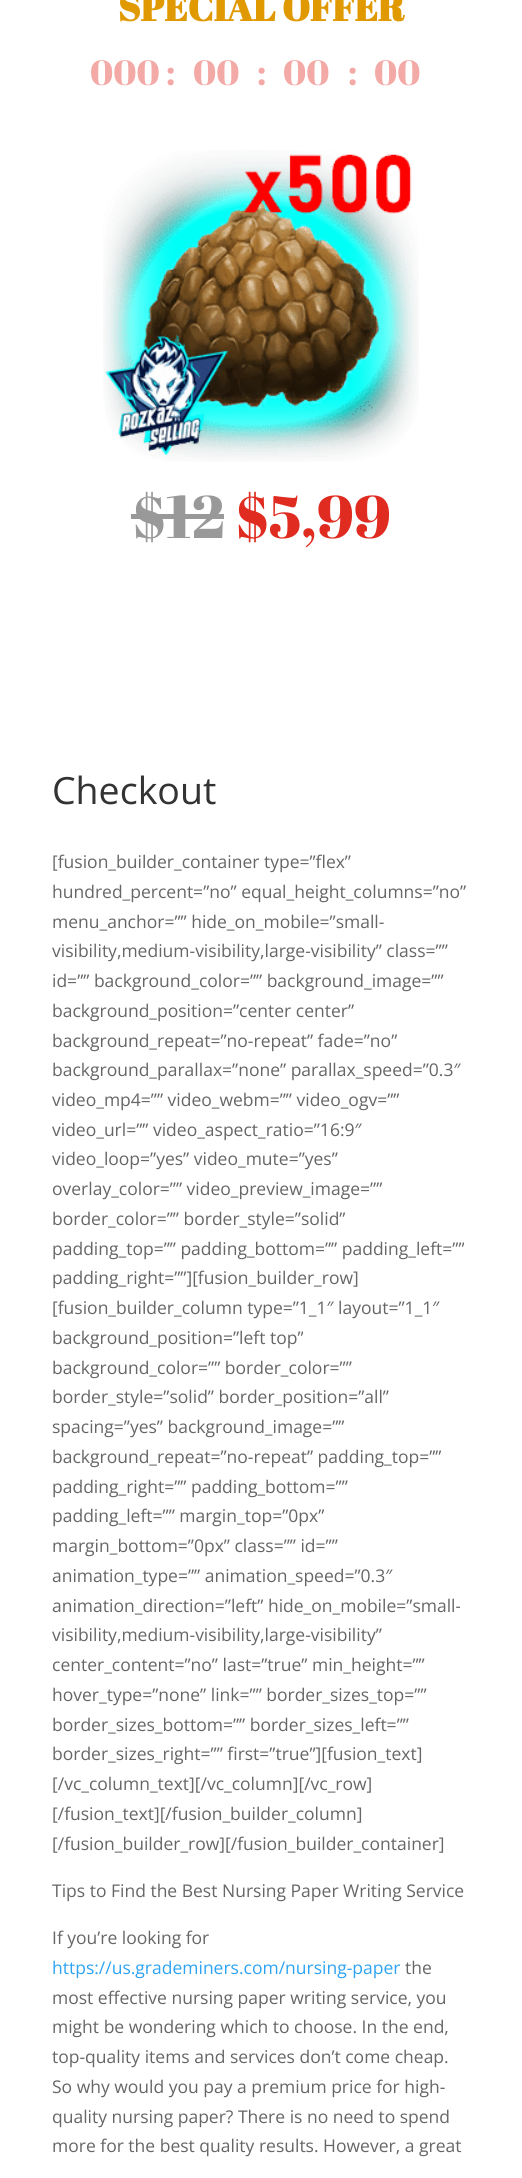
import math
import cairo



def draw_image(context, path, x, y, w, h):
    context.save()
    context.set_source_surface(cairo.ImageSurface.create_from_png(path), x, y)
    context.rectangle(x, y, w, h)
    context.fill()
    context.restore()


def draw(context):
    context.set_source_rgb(1, 1, 1)
    context.paint()
    draw_image(context, "images/1.png", 103, 150, 316, 312)
    context.set_source_rgb(153 / 255, 153 / 255, 153 / 255)
    context.rectangle(131, 514, 93, 5)
    context.fill()
    context.select_font_face("Abril Fatface", cairo.FontSlant.NORMAL, cairo.FontWeight.BOLD)
    context.set_font_size(37.5)
    context.set_source_rgb(224 / 255, 153 / 255, 0)
    context.move_to(118, 21)
    context.show_text("SPECIAL OFFER")
    context.select_font_face("Abril Fatface")
    context.set_font_size(35)
    context.set_source_rgb(243 / 255, 170 / 255, 166 / 255)
    context.move_to(90, 85)
    context.show_text("000 :")
    context.move_to(193, 85)
    context.show_text("00")
    context.move_to(257, 85)
    context.show_text(":")
    context.move_to(283, 85)
    context.show_text("00")
    context.move_to(348, 85)
    context.show_text(":")
    context.move_to(374, 85)
    context.show_text("00")
    context.set_font_size(60)
    context.set_source_rgb(153 / 255, 153 / 255, 153 / 255)
    context.move_to(132, 538)
    context.show_text("$12")
    context.set_source_rgb(224 / 255, 43 / 255, 32 / 255)
    context.move_to(235, 538)
    context.show_text("$5,99")
    context.select_font_face("Open Sans")
    context.set_font_size(37.5)
    context.set_source_rgb(51 / 255, 51 / 255, 51 / 255)
    context.move_to(52, 804)
    context.show_text("Checkout")
    context.set_font_size(17.5)
    context.set_source_rgb(102 / 255, 102 / 255, 102 / 255)
    context.move_to(52, 868)
    context.show_text("[fusion_builder_container type=”flex”")
    context.move_to(52, 898)
    context.show_text("hundred_percent=”no” equal_height_columns=”no”")
    context.move_to(52, 928)
    context.show_text("menu_anchor=”” hide_on_mobile=”small-")
    context.move_to(52, 957)
    context.show_text("visibility,medium-visibility,large-visibility” class=””")
    context.move_to(52, 987)
    context.show_text("id=”” background_color=”” background_image=””")
    context.move_to(52, 1017)
    context.show_text("background_position=”center center”")
    context.move_to(52, 1047)
    context.show_text("background_repeat=”no-repeat” fade=”no”")
    context.move_to(52, 1076)
    context.show_text("background_parallax=”none” parallax_speed=”0.3″")
    context.move_to(52, 1106)
    context.show_text("video_mp4=”” video_webm=”” video_ogv=””")
    context.move_to(52, 1136)
    context.show_text("video_url=”” video_aspect_ratio=”16:9″")
    context.move_to(52, 1165)
    context.show_text("video_loop=”yes” video_mute=”yes”")
    context.move_to(52, 1195)
    context.show_text("overlay_color=”” video_preview_image=””")
    context.move_to(52, 1225)
    context.show_text("border_color=”” border_style=”solid”")
    context.move_to(52, 1255)
    context.show_text("padding_top=”” padding_bottom=”” padding_left=””")
    context.move_to(52, 1284)
    context.show_text("padding_right=””][fusion_builder_row]")
    context.move_to(52, 1314)
    context.show_text("[fusion_builder_column type=”1_1″ layout=”1_1″")
    context.move_to(52, 1344)
    context.show_text("background_position=”left top”")
    context.move_to(52, 1374)
    context.show_text("background_color=”” border_color=””")
    context.move_to(52, 1403)
    context.show_text("border_style=”solid” border_position=”all”")
    context.move_to(52, 1433)
    context.show_text("spacing=”yes” background_image=””")
    context.move_to(52, 1463)
    context.show_text("background_repeat=”no-repeat” padding_top=””")
    context.move_to(52, 1493)
    context.show_text("padding_right=”” padding_bottom=””")
    context.move_to(52, 1522)
    context.show_text("padding_left=”” margin_top=”0px”")
    context.move_to(52, 1552)
    context.show_text("margin_bottom=”0px” class=”” id=””")
    context.move_to(52, 1582)
    context.show_text("animation_type=”” animation_speed=”0.3″")
    context.move_to(52, 1612)
    context.show_text("animation_direction=”left” hide_on_mobile=”small-")
    context.move_to(52, 1641)
    context.show_text("visibility,medium-visibility,large-visibility”")
    context.move_to(52, 1671)
    context.show_text("center_content=”no” last=”true” min_height=””")
    context.move_to(52, 1701)
    context.show_text("hover_type=”none” link=”” border_sizes_top=””")
    context.move_to(52, 1731)
    context.show_text("border_sizes_bottom=”” border_sizes_left=””")
    context.move_to(52, 1760)
    context.show_text("border_sizes_right=”” first=”true”][fusion_text]")
    context.move_to(52, 1790)
    context.show_text("[/vc_column_text][/vc_column][/vc_row]")
    context.move_to(52, 1820)
    context.show_text("[/fusion_text][/fusion_builder_column]")
    context.move_to(52, 1850)
    context.show_text("[/fusion_builder_row][/fusion_builder_container]")
    context.move_to(52, 1897)
    context.show_text("Tips to Find the Best Nursing Paper Writing Service")
    context.move_to(52, 1944)
    context.show_text("If you’re looking for")
    context.set_source_rgb(46 / 255, 163 / 255, 242 / 255)
    context.move_to(52, 1974)
    context.show_text("https://us.grademiners.com/nursing-paper")
    context.set_source_rgb(102 / 255, 102 / 255, 102 / 255)
    context.move_to(405, 1974)
    context.show_text("the")
    context.move_to(52, 2004)
    context.show_text("most effective nursing paper writing service, you")
    context.move_to(52, 2033)
    context.show_text("might be wondering which to choose. In the end,")
    context.move_to(52, 2063)
    context.show_text("top-quality items and services don’t come cheap.")
    context.move_to(52, 2093)
    context.show_text("So why would you pay a premium price for high-")
    context.move_to(52, 2123)
    context.show_text("quality nursing paper? There is no need to spend")
    context.move_to(52, 2152)
    context.show_text("more for the best quality results. However, a great")


surface = cairo.ImageSurface(cairo.Format.RGB24, 522, 2178)
context = cairo.Context(surface)
options = cairo.FontOptions()
options.set_hint_metrics(cairo.HintMetrics.OFF)
options.set_hint_style(cairo.HintStyle.NONE)
context.set_font_options(options)
context.set_miter_limit(4)
draw(context)
surface.write_to_png("out.png")
